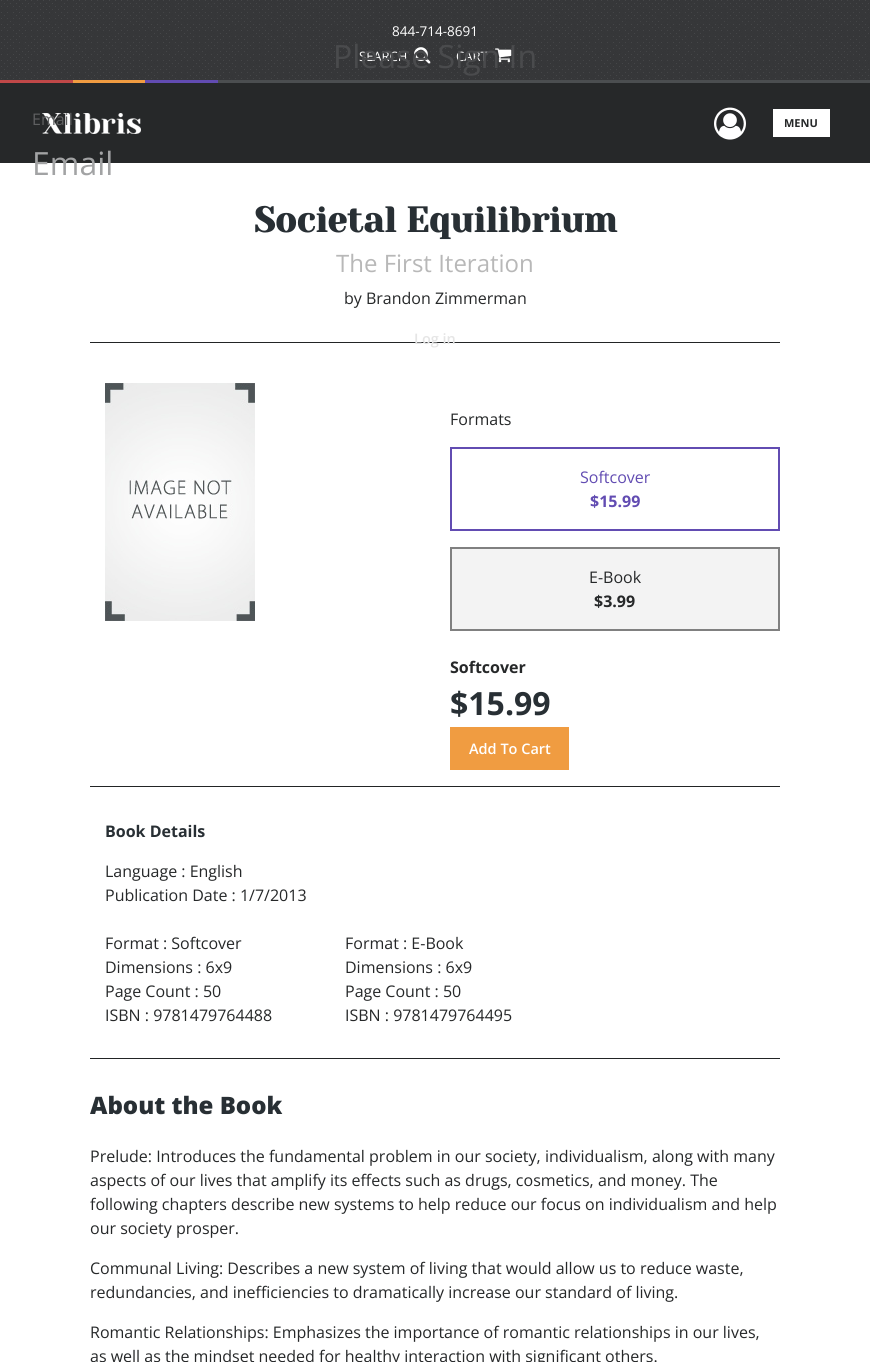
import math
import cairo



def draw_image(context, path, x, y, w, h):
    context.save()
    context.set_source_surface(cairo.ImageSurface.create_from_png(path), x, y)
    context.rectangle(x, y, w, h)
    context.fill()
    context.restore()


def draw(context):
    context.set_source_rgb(1, 1, 1)
    context.paint()
    draw_image(context, "images/1.png", 0, 0, 870, 80)
    draw_image(context, "images/2.png", 414, 47, 17, 17)
    draw_image(context, "images/3.png", 495, 48, 17, 15)
    context.set_source_rgb(192 / 255, 72 / 255, 72 / 255)
    context.rectangle(0, 80, 73, 3)
    context.fill()
    context.set_source_rgb(240 / 255, 156 / 255, 65 / 255)
    context.rectangle(73, 80, 72, 3)
    context.fill()
    context.set_source_rgb(98 / 255, 76 / 255, 178 / 255)
    context.rectangle(145, 80, 73, 3)
    context.fill()
    context.set_source_rgb(75 / 255, 78 / 255, 80 / 255)
    context.rectangle(218, 80, 652, 3)
    context.fill()
    context.set_source_rgb(38 / 255, 40 / 255, 41 / 255)
    context.rectangle(0, 83, 870, 80)
    context.fill()
    draw_image(context, "images/4.png", 42, 113, 99, 21)
    draw_image(context, "images/5.png", 714, 107, 32, 33)
    context.set_source_rgb(1, 1, 1)
    context.rectangle(773, 109, 57, 28)
    context.fill()
    context.set_source_rgb(34 / 255, 36 / 255, 37 / 255)
    context.rectangle(90, 342, 690, 1)
    context.fill()
    draw_image(context, "images/6.png", 105, 383, 150, 238)
    context.rectangle(451, 448, 328, 82)
    context.set_source_rgb(98 / 255, 76 / 255, 178 / 255)
    context.stroke()
    context.set_source_rgb(243 / 255, 243 / 255, 243 / 255)
    context.rectangle(451, 548, 328, 82)
    context.fill_preserve()
    context.set_source_rgb(128 / 255, 128 / 255, 128 / 255)
    context.stroke()
    context.set_source_rgb(240 / 255, 156 / 255, 65 / 255)
    context.rectangle(450, 727, 119, 43)
    context.fill()
    context.set_source_rgb(34 / 255, 36 / 255, 37 / 255)
    context.rectangle(90, 786, 690, 1)
    context.fill()
    context.rectangle(90, 1058, 690, 1)
    context.fill()
    context.select_font_face("Open Sans")
    context.set_font_size(13.5)
    context.set_source_rgb(1, 1, 1)
    context.move_to(392, 36)
    context.show_text("844-714-8691")
    context.set_font_size(13)
    context.move_to(359, 61)
    context.show_text("SEARCH")
    context.move_to(456, 61)
    context.show_text("CART")
    context.set_font_size(32)
    context.set_source_rgb(74 / 255, 75 / 255, 77 / 255)
    context.move_to(333, 68)
    context.show_text("Please Sign In")
    context.set_font_size(16)
    context.set_source_rgb(95 / 255, 96 / 255, 97 / 255)
    context.move_to(32, 125)
    context.show_text("Email")
    context.set_font_size(32)
    context.set_source_rgb(162 / 255, 163 / 255, 164 / 255)
    context.move_to(32, 175)
    context.show_text("Email")
    context.select_font_face("Open Sans SemiBold")
    context.set_font_size(14.5)
    context.set_source_rgb(229 / 255, 229 / 255, 229 / 255)
    context.move_to(414, 344)
    context.show_text("Log in")
    context.select_font_face("Open Sans", cairo.FontSlant.NORMAL, cairo.FontWeight.BOLD)
    context.set_font_size(11)
    context.set_source_rgb(38 / 255, 40 / 255, 41 / 255)
    context.move_to(784, 127)
    context.show_text("MENU")
    context.select_font_face("Yeseva One", cairo.FontSlant.NORMAL, cairo.FontWeight.BOLD)
    context.set_font_size(35.25)
    context.set_source_rgb(40 / 255, 47 / 255, 52 / 255)
    context.move_to(254, 232)
    context.show_text("Societal Equilibrium")
    context.select_font_face("Open Sans")
    context.set_font_size(24)
    context.set_source_rgb(184 / 255, 184 / 255, 184 / 255)
    context.move_to(336, 272)
    context.show_text("The First Iteration")
    context.set_font_size(16)
    context.set_source_rgb(38 / 255, 40 / 255, 41 / 255)
    context.move_to(344, 304)
    context.show_text("by Brandon Zimmerman")
    context.move_to(450, 425)
    context.show_text("Formats")
    context.set_source_rgb(98 / 255, 76 / 255, 178 / 255)
    context.move_to(580, 483)
    context.show_text("Softcover")
    context.select_font_face("Open Sans", cairo.FontSlant.NORMAL, cairo.FontWeight.BOLD)
    context.move_to(590, 507)
    context.show_text("$15.99")
    context.select_font_face("Open Sans")
    context.set_source_rgb(38 / 255, 40 / 255, 41 / 255)
    context.move_to(589, 583)
    context.show_text("E-Book")
    context.select_font_face("Open Sans", cairo.FontSlant.NORMAL, cairo.FontWeight.BOLD)
    context.move_to(594, 607)
    context.show_text("$3.99")
    context.move_to(450, 673)
    context.show_text("Softcover")
    context.set_font_size(32)
    context.set_source_rgb(40 / 255, 47 / 255, 52 / 255)
    context.move_to(450, 715)
    context.show_text("$15.99")
    context.select_font_face("Open Sans SemiBold")
    context.set_font_size(14.5)
    context.set_source_rgb(1, 1, 1)
    context.move_to(469, 754)
    context.show_text("Add To Cart")
    context.select_font_face("Open Sans", cairo.FontSlant.NORMAL, cairo.FontWeight.BOLD)
    context.set_font_size(16)
    context.set_source_rgb(40 / 255, 47 / 255, 52 / 255)
    context.move_to(105, 837)
    context.show_text("Book Details")
    context.select_font_face("Open Sans")
    context.set_source_rgb(38 / 255, 40 / 255, 41 / 255)
    context.move_to(105, 877)
    context.show_text("Language : English")
    context.move_to(105, 901)
    context.show_text("Publication Date : 1/7/2013")
    context.move_to(105, 949)
    context.show_text("Format : Softcover")
    context.move_to(105, 973)
    context.show_text("Dimensions : 6x9")
    context.move_to(105, 997)
    context.show_text("Page Count : 50")
    context.move_to(105, 1021)
    context.show_text("ISBN : 9781479764488")
    context.move_to(345, 949)
    context.show_text("Format : E-Book")
    context.move_to(345, 973)
    context.show_text("Dimensions : 6x9")
    context.move_to(345, 997)
    context.show_text("Page Count : 50")
    context.move_to(345, 1021)
    context.show_text("ISBN : 9781479764495")
    context.select_font_face("Open Sans ExtraBold")
    context.set_font_size(24)
    context.set_source_rgb(40 / 255, 47 / 255, 52 / 255)
    context.move_to(90, 1114)
    context.show_text("About the Book")
    context.select_font_face("Open Sans")
    context.set_font_size(16)
    context.set_source_rgb(38 / 255, 40 / 255, 41 / 255)
    context.move_to(90, 1162)
    context.show_text("Prelude: Introduces the fundamental problem in our society, individualism, along with many")
    context.move_to(90, 1186)
    context.show_text("aspects of our lives that amplify its effects such as drugs, cosmetics, and money. The")
    context.move_to(90, 1210)
    context.show_text("following chapters describe new systems to help reduce our focus on individualism and help")
    context.move_to(90, 1234)
    context.show_text("our society prosper.")
    context.move_to(90, 1274)
    context.show_text("Communal Living: Describes a new system of living that would allow us to reduce waste,")
    context.move_to(90, 1298)
    context.show_text("redundancies, and inefficiencies to dramatically increase our standard of living.")
    context.move_to(90, 1338)
    context.show_text("Romantic Relationships: Emphasizes the importance of romantic relationships in our lives,")
    context.move_to(90, 1362)
    context.show_text("as well as the mindset needed for healthy interaction with significant others.")


surface = cairo.ImageSurface(cairo.Format.RGB24, 870, 1362)
context = cairo.Context(surface)
options = cairo.FontOptions()
options.set_hint_metrics(cairo.HintMetrics.OFF)
options.set_hint_style(cairo.HintStyle.NONE)
context.set_font_options(options)
context.set_miter_limit(4)
draw(context)
surface.write_to_png("out.png")
